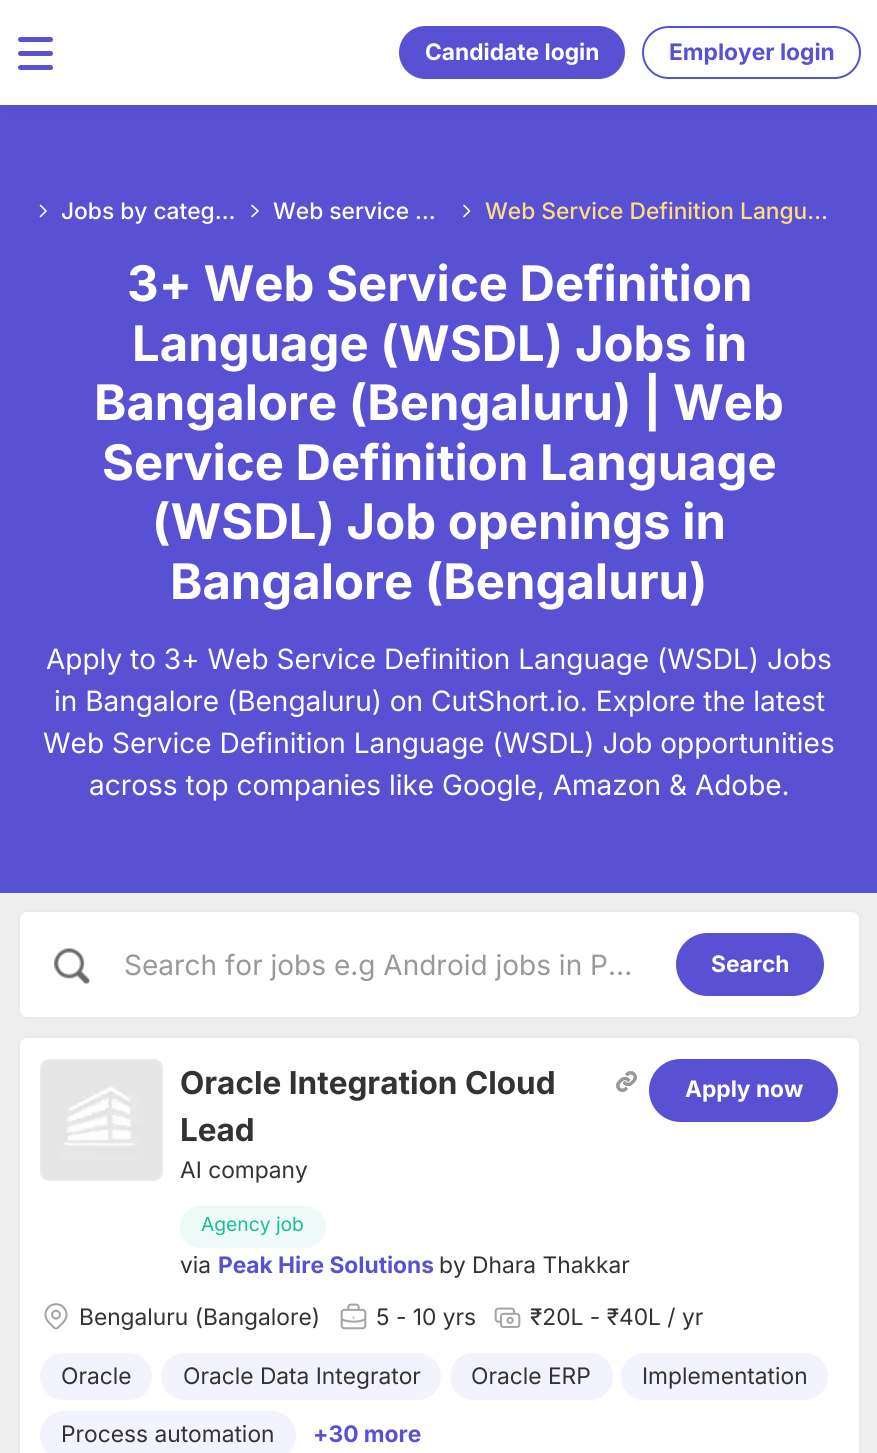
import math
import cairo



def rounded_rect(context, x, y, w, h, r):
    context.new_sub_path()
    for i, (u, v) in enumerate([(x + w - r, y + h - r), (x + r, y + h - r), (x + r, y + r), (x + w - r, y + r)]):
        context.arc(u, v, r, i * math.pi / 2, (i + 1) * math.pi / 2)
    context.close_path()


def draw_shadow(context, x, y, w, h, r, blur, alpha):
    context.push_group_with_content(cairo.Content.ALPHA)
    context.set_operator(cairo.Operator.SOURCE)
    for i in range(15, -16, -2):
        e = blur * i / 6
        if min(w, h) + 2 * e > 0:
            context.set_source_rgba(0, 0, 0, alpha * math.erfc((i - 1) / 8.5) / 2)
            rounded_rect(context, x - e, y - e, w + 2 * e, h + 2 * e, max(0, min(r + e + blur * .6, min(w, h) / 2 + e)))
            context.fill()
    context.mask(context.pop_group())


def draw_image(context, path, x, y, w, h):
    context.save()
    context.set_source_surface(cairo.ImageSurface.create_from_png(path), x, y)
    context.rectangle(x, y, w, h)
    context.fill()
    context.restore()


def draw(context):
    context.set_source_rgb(238 / 255, 238 / 255, 238 / 255)
    context.paint()
    context.set_source_rgb(88 / 255, 81 / 255, 211 / 255)
    context.rectangle(0, 105, 877, 788)
    context.fill()
    context.set_source_rgb(0, 0, 0)
    draw_shadow(context, 2, 7, 875, 102, 0, 8, 0.05)
    context.set_source_rgb(1, 1, 1)
    context.rectangle(0, 0, 877, 105)
    context.fill()
    context.set_source_rgb(88 / 255, 81 / 255, 211 / 255)
    rounded_rect(context, 18, 37, 35, 5, 2.5)
    context.fill()
    rounded_rect(context, 18, 51, 35, 5, 2.5)
    context.fill()
    rounded_rect(context, 18, 65, 35, 5, 2.5)
    context.fill()
    rounded_rect(context, 399, 26, 226, 53, 26.5)
    context.fill()
    rounded_rect(context, 643, 27, 217, 51, 25.5)
    context.stroke()
    context.new_path()
    context.move_to(40.5, 205.5)
    context.line_to(46, 211)
    context.line_to(40.5, 216.5)
    context.set_source_rgb(1, 1, 1)
    context.set_line_width(1.6)
    context.set_line_cap(cairo.LineCap.ROUND)
    context.set_line_join(cairo.LineJoin.ROUND)
    context.stroke()
    context.new_path()
    context.move_to(252, 205.5)
    context.line_to(258, 211)
    context.line_to(252, 216.5)
    context.stroke()
    context.new_path()
    context.move_to(464, 205.5)
    context.line_to(469.5, 211)
    context.line_to(464, 216.5)
    context.stroke()
    rounded_rect(context, 19, 911, 841, 107, 8)
    context.fill_preserve()
    context.set_source_rgb(234 / 255, 234 / 255, 234 / 255)
    context.set_line_width(2)
    context.set_line_cap(cairo.LineCap.BUTT)
    context.set_line_join(cairo.LineJoin.MITER)
    context.stroke()
    draw_image(context, "images/1.png", 54, 948, 36, 36)
    context.set_source_rgb(88 / 255, 81 / 255, 211 / 255)
    rounded_rect(context, 676, 933, 148, 63, 31.5)
    context.fill()
    context.set_source_rgb(1, 1, 1)
    context.new_path()
    context.move_to(27, 1036)
    context.line_to(852, 1036)
    context.curve_to(857, 1036, 861, 1040, 861, 1045)
    context.line_to(861, 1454)
    context.line_to(18, 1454)
    context.line_to(18, 1045)
    context.curve_to(18, 1040, 22, 1036, 27, 1036)
    context.close_path()
    context.fill()
    rounded_rect(context, 19, 1037, 841, 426, 8)
    context.set_source_rgb(234 / 255, 234 / 255, 234 / 255)
    context.stroke()
    rounded_rect(context, 41, 1060, 121, 120, 8)
    context.stroke()
    draw_image(context, "images/2.png", 42, 1061, 119, 118)
    draw_image(context, "images/3.png", 616, 1071, 21, 21)
    context.set_source_rgb(237 / 255, 250 / 255, 247 / 255)
    rounded_rect(context, 180, 1206, 146, 42, 21)
    context.fill()
    context.set_source_rgb(88 / 255, 81 / 255, 211 / 255)
    rounded_rect(context, 649, 1059, 189, 63, 31.5)
    context.fill()
    draw_image(context, "images/4.png", 44, 1303, 24, 27)
    draw_image(context, "images/5.png", 340, 1303, 27, 27)
    draw_image(context, "images/6.png", 494, 1307, 27, 21)
    context.set_source_rgb(243 / 255, 242 / 255, 1)
    rounded_rect(context, 40, 1353, 112, 47, 23.5)
    context.fill()
    rounded_rect(context, 161, 1353, 280, 47, 23.5)
    context.fill()
    rounded_rect(context, 450, 1353, 163, 47, 23.5)
    context.fill()
    rounded_rect(context, 621, 1353, 207, 47, 23.5)
    context.fill()
    rounded_rect(context, 40, 1411, 256, 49, 24.5)
    context.fill()
    context.select_font_face("Inter", cairo.FontSlant.NORMAL, cairo.FontWeight.BOLD)
    context.set_font_size(22.75)
    context.set_source_rgb(1, 1, 1)
    context.move_to(425, 60)
    context.show_text("Candidate login")
    context.set_source_rgb(88 / 255, 81 / 255, 211 / 255)
    context.move_to(669, 60)
    context.show_text("Employer login")
    context.select_font_face("Inter Medium")
    context.set_source_rgb(1, 1, 1)
    context.move_to(61, 219)
    context.show_text("Jobs by categ…")
    context.move_to(273, 219)
    context.show_text("Web service …")
    context.set_source_rgb(1, 222 / 255, 128 / 255)
    context.move_to(485, 219)
    context.show_text("Web Service Definition Langu…")
    context.select_font_face("Inter", cairo.FontSlant.NORMAL, cairo.FontWeight.BOLD)
    context.set_font_size(49)
    context.set_source_rgb(1, 1, 1)
    context.move_to(127, 301)
    context.show_text("3+ Web Service Definition")
    context.move_to(132, 361)
    context.show_text("Language (WSDL) Jobs in")
    context.move_to(94, 420)
    context.show_text("Bangalore (Bengaluru) | Web")
    context.move_to(102, 480)
    context.show_text("Service Definition Language")
    context.move_to(152, 539)
    context.show_text("(WSDL) Job openings in")
    context.move_to(170, 599)
    context.show_text("Bangalore (Bengaluru)")
    context.select_font_face("Inter")
    context.set_font_size(28)
    context.move_to(46, 669)
    context.show_text("Apply to 3+ Web Service Definition Language (WSDL) Jobs")
    context.move_to(54, 711)
    context.show_text("in Bangalore (Bengaluru) on CutShort.io. Explore the latest")
    context.move_to(43, 753)
    context.show_text("Web Service Definition Language (WSDL) Job opportunities")
    context.move_to(89, 795)
    context.show_text("across top companies like Google, Amazon & Adobe.")
    context.set_source_rgb(153 / 255, 153 / 255, 153 / 255)
    context.move_to(124, 975)
    context.show_text("Search for jobs e.g Android jobs in P…")
    context.select_font_face("Inter", cairo.FontSlant.NORMAL, cairo.FontWeight.BOLD)
    context.set_font_size(22.75)
    context.set_source_rgb(1, 1, 1)
    context.move_to(711, 972)
    context.show_text("Search")
    context.set_font_size(31.5)
    context.set_source_rgb(51 / 255, 51 / 255, 51 / 255)
    context.move_to(180, 1094)
    context.show_text("Oracle Integration Cloud")
    context.move_to(180, 1141)
    context.show_text("Lead")
    context.select_font_face("Inter")
    context.set_font_size(22.75)
    context.move_to(180, 1178)
    context.show_text("AI company")
    context.set_font_size(19.25)
    context.set_source_rgb(26 / 255, 188 / 255, 156 / 255)
    context.move_to(201, 1231)
    context.show_text("Agency job")
    context.set_font_size(22.75)
    context.set_source_rgb(51 / 255, 51 / 255, 51 / 255)
    context.move_to(180, 1273)
    context.show_text("via")
    context.select_font_face("Inter", cairo.FontSlant.NORMAL, cairo.FontWeight.BOLD)
    context.set_source_rgb(88 / 255, 81 / 255, 211 / 255)
    context.move_to(218, 1273)
    context.show_text("Peak Hire Solutions")
    context.select_font_face("Inter")
    context.set_source_rgb(51 / 255, 51 / 255, 51 / 255)
    context.move_to(439, 1273)
    context.show_text("by Dhara Thakkar")
    context.select_font_face("Inter", cairo.FontSlant.NORMAL, cairo.FontWeight.BOLD)
    context.set_source_rgb(1, 1, 1)
    context.move_to(685, 1097)
    context.show_text("Apply now")
    context.select_font_face("Inter")
    context.set_source_rgb(51 / 255, 51 / 255, 51 / 255)
    context.move_to(79, 1325)
    context.show_text("Bengaluru (Bangalore)")
    context.move_to(376, 1325)
    context.show_text("5 - 10 yrs")
    context.move_to(530, 1325)
    context.show_text("₹20L - ₹40L / yr")
    context.move_to(61, 1384)
    context.show_text("Oracle")
    context.move_to(183, 1384)
    context.show_text("Oracle Data Integrator")
    context.move_to(471, 1384)
    context.show_text("Oracle ERP")
    context.move_to(642, 1384)
    context.show_text("Implementation")
    context.move_to(61, 1442)
    context.show_text("Process automation")
    context.select_font_face("Inter", cairo.FontSlant.NORMAL, cairo.FontWeight.BOLD)
    context.set_source_rgb(88 / 255, 81 / 255, 211 / 255)
    context.move_to(313, 1442)
    context.show_text("+30 more")


surface = cairo.ImageSurface(cairo.Format.RGB24, 877, 1453)
context = cairo.Context(surface)
options = cairo.FontOptions()
options.set_hint_metrics(cairo.HintMetrics.OFF)
options.set_hint_style(cairo.HintStyle.NONE)
context.set_font_options(options)
context.set_miter_limit(4)
draw(context)
surface.write_to_png("out.png")
